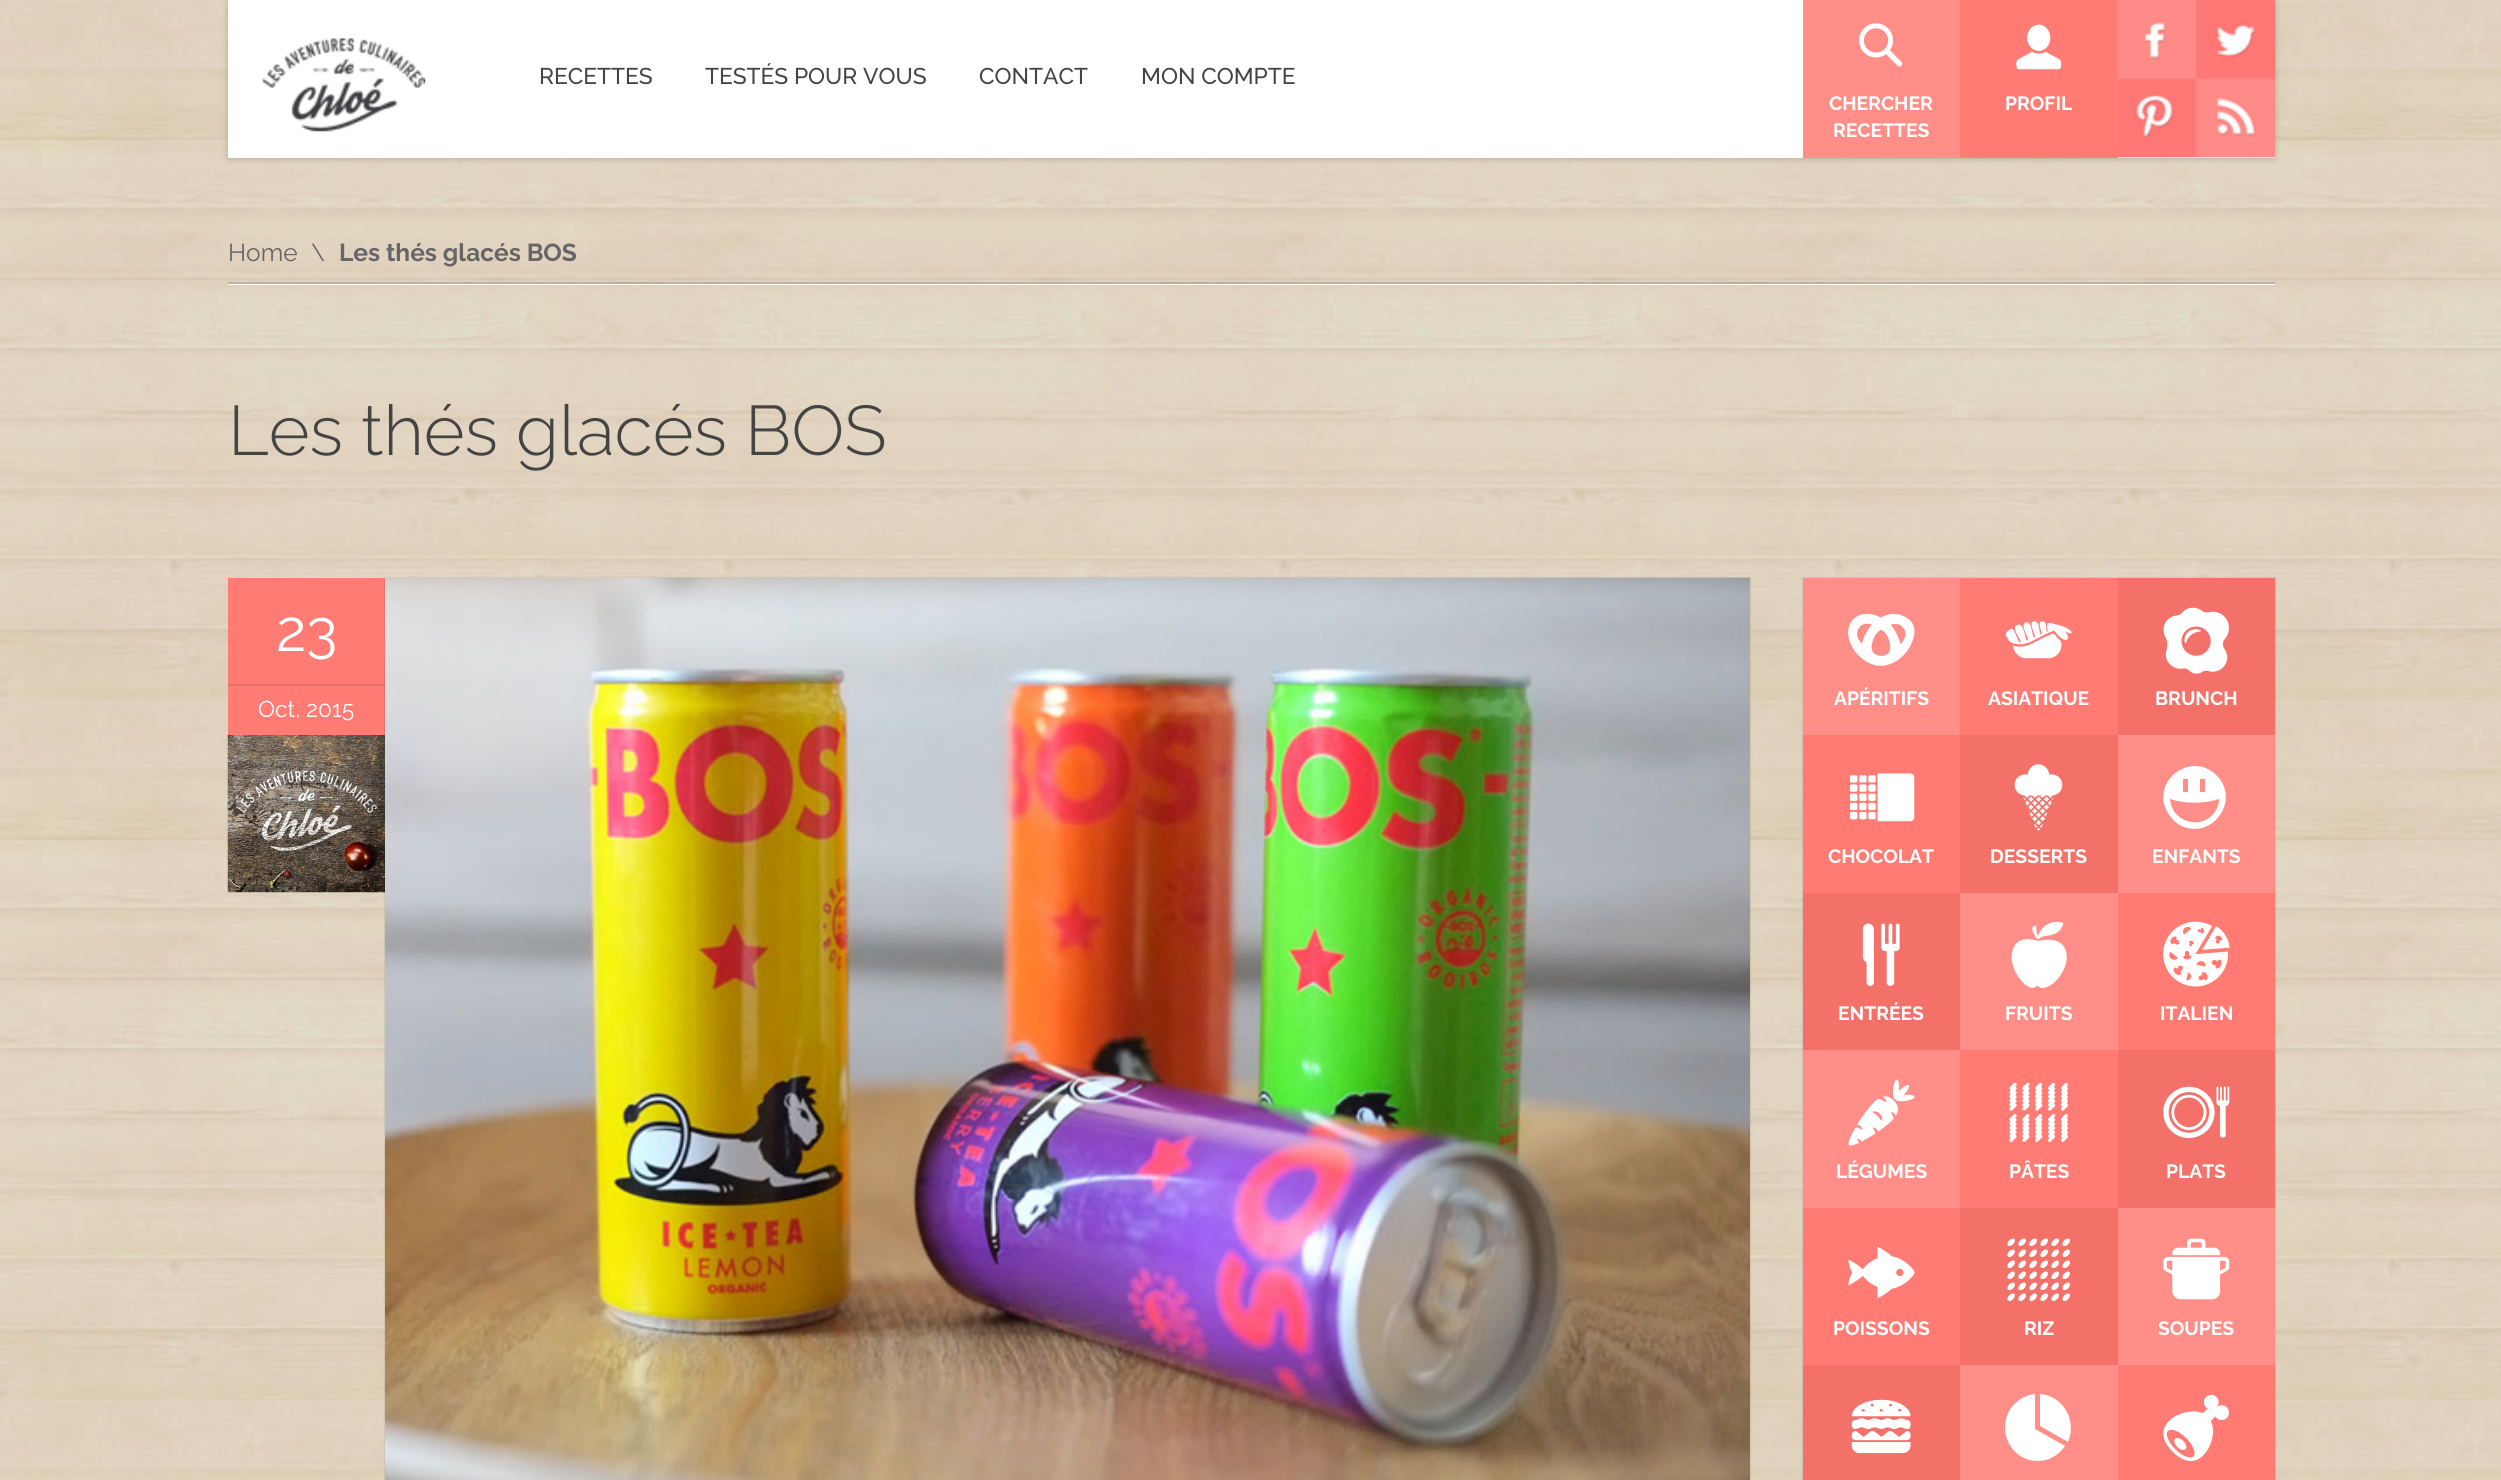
import math
import cairo



def rounded_rect(context, x, y, w, h, r):
    context.new_sub_path()
    for i, (u, v) in enumerate([(x + w - r, y + h - r), (x + r, y + h - r), (x + r, y + r), (x + w - r, y + r)]):
        context.arc(u, v, r, i * math.pi / 2, (i + 1) * math.pi / 2)
    context.close_path()


def draw_shadow(context, x, y, w, h, r, blur, alpha):
    context.push_group_with_content(cairo.Content.ALPHA)
    context.set_operator(cairo.Operator.SOURCE)
    for i in range(15, -16, -2):
        e = blur * i / 6
        if min(w, h) + 2 * e > 0:
            context.set_source_rgba(0, 0, 0, alpha * math.erfc((i - 1) / 8.5) / 2)
            rounded_rect(context, x - e, y - e, w + 2 * e, h + 2 * e, max(0, min(r + e + blur * .6, min(w, h) / 2 + e)))
            context.fill()
    context.mask(context.pop_group())


def draw_image(context, path, x, y, w, h):
    context.save()
    context.set_source_surface(cairo.ImageSurface.create_from_png(path), x, y)
    context.rectangle(x, y, w, h)
    context.fill()
    context.restore()


def draw(context):
    context.set_source_rgb(1, 1, 1)
    context.paint()
    draw_image(context, "images/1.png", 0, 0, 2501, 1480)
    context.set_source_rgb(0, 0, 0)
    draw_shadow(context, 228, 2, 2047, 157, 0, 3.5, 0.2)
    context.set_source_rgb(1, 1, 1)
    context.rectangle(228, 0, 2047, 158)
    context.fill()
    draw_image(context, "images/2.png", 262, 38, 164, 94)
    context.set_source_rgb(1, 142 / 255, 136 / 255)
    context.rectangle(1803, 0, 157, 158)
    context.fill()
    draw_image(context, "images/3.png", 1859, 23, 44, 44)
    context.set_source_rgb(1, 123 / 255, 116 / 255)
    context.rectangle(1960, 0, 158, 158)
    context.fill()
    draw_image(context, "images/4.png", 2016, 24, 46, 46)
    draw_image(context, "images/5.png", 2117, 0, 158, 158)
    context.set_source_rgb(1, 1, 1)
    context.rectangle(228, 284, 2047, 1)
    context.fill()
    context.set_source_rgba(0, 0, 0, 0.15)
    context.rectangle(228, 282, 2047, 2)
    context.fill()
    context.set_source_rgb(1, 123 / 255, 116 / 255)
    context.rectangle(228, 578, 157, 157)
    context.fill()
    context.set_source_rgb(230 / 255, 111 / 255, 104 / 255)
    context.rectangle(228, 684, 157, 2)
    context.fill()
    draw_image(context, "images/6.png", 227, 735, 158, 158)
    context.set_source_rgb(0, 0, 0)
    draw_shadow(context, 385, 578, 1365, 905, 0, 1, 0.2)
    draw_image(context, "images/7.png", 385, 577, 1365, 903)
    draw_shadow(context, 1803, 578, 472, 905, 0, 1, 0.2)
    context.set_source_rgb(1, 142 / 255, 136 / 255)
    context.rectangle(1803, 578, 157, 157)
    context.fill()
    draw_image(context, "images/8.png", 1848, 613, 67, 53)
    context.set_source_rgb(1, 123 / 255, 116 / 255)
    context.rectangle(1960, 578, 158, 157)
    context.fill()
    draw_image(context, "images/9.png", 2005, 621, 67, 38)
    context.set_source_rgb(244 / 255, 113 / 255, 106 / 255)
    context.rectangle(2118, 578, 157, 157)
    context.fill()
    draw_image(context, "images/10.png", 2163, 607, 66, 67)
    context.set_source_rgb(1, 123 / 255, 116 / 255)
    context.rectangle(1803, 735, 157, 158)
    context.fill()
    draw_image(context, "images/11.png", 1849, 773, 66, 49)
    context.set_source_rgb(244 / 255, 113 / 255, 106 / 255)
    context.rectangle(1960, 735, 158, 158)
    context.fill()
    draw_image(context, "images/12.png", 2014, 764, 49, 67)
    context.set_source_rgb(1, 142 / 255, 136 / 255)
    context.rectangle(2118, 735, 157, 158)
    context.fill()
    context.set_source_rgb(1, 1, 1)
    context.new_path()
    context.move_to(2203, 767)
    context.curve_to(2175, 760, 2151, 792, 2170, 816)
    context.curve_to(2174, 822, 2180, 826, 2187, 828)
    context.curve_to(2214, 835, 2238, 802, 2219, 778)
    context.curve_to(2215, 773, 2209, 769, 2203, 767)
    context.close_path()
    context.move_to(2200, 779)
    context.line_to(2205, 779)
    context.line_to(2205, 792)
    context.line_to(2200, 792)
    context.close_path()
    context.move_to(2183, 779)
    context.line_to(2188, 779)
    context.line_to(2188, 792)
    context.line_to(2183, 792)
    context.close_path()
    context.move_to(2203, 821)
    context.curve_to(2188, 826, 2171, 816, 2170, 799)
    context.curve_to(2185, 804, 2204, 804, 2219, 799)
    context.curve_to(2219, 809, 2212, 818, 2203, 821)
    context.close_path()
    context.fill()
    context.set_source_rgb(244 / 255, 113 / 255, 106 / 255)
    context.rectangle(1803, 893, 157, 157)
    context.fill()
    draw_image(context, "images/13.png", 1862, 923, 38, 63)
    context.set_source_rgb(1, 142 / 255, 136 / 255)
    context.rectangle(1960, 893, 158, 157)
    context.fill()
    draw_image(context, "images/14.png", 2011, 921, 56, 67)
    context.set_source_rgb(1, 123 / 255, 116 / 255)
    context.rectangle(2118, 893, 157, 157)
    context.fill()
    draw_image(context, "images/15.png", 2163, 921, 67, 66)
    context.set_source_rgb(1, 142 / 255, 136 / 255)
    context.rectangle(1803, 1050, 157, 158)
    context.fill()
    draw_image(context, "images/16.png", 1848, 1079, 67, 67)
    context.set_source_rgb(1, 123 / 255, 116 / 255)
    context.rectangle(1960, 1050, 158, 158)
    context.fill()
    draw_image(context, "images/17.png", 2009, 1082, 59, 60)
    context.set_source_rgb(244 / 255, 113 / 255, 106 / 255)
    context.rectangle(2118, 1050, 157, 158)
    context.fill()
    draw_image(context, "images/18.png", 2163, 1086, 67, 52)
    context.set_source_rgb(1, 123 / 255, 116 / 255)
    context.rectangle(1803, 1208, 157, 157)
    context.fill()
    draw_image(context, "images/19.png", 1848, 1246, 67, 53)
    context.set_source_rgb(244 / 255, 113 / 255, 106 / 255)
    context.rectangle(1960, 1208, 158, 157)
    context.fill()
    draw_image(context, "images/20.png", 2007, 1238, 63, 63)
    context.set_source_rgb(1, 142 / 255, 136 / 255)
    context.rectangle(2118, 1208, 157, 157)
    context.fill()
    draw_image(context, "images/21.png", 2163, 1238, 67, 62)
    context.set_source_rgb(244 / 255, 113 / 255, 106 / 255)
    context.rectangle(1803, 1365, 157, 115)
    context.fill()
    draw_image(context, "images/22.png", 1851, 1399, 60, 55)
    context.set_source_rgb(1, 142 / 255, 136 / 255)
    context.rectangle(1960, 1365, 158, 115)
    context.fill()
    context.set_source_rgb(1, 1, 1)
    context.new_path()
    context.move_to(2040, 1394)
    context.curve_to(2064, 1396, 2077, 1421, 2068, 1442)
    context.line_to(2040, 1426)
    context.close_path()
    context.move_to(2065, 1446)
    context.line_to(2035, 1429)
    context.line_to(2035, 1394)
    context.curve_to(2018, 1396, 2005, 1410, 2005, 1427)
    context.curve_to(2005, 1446, 2019, 1461, 2038, 1461)
    context.curve_to(2049, 1461, 2059, 1455, 2065, 1446)
    context.close_path()
    context.fill()
    context.set_source_rgb(1, 123 / 255, 116 / 255)
    context.rectangle(2118, 1365, 157, 115)
    context.fill()
    draw_image(context, "images/23.png", 2163, 1394, 66, 67)
    context.select_font_face("Raleway Medium")
    context.set_font_size(22.75)
    context.set_source_rgb(68 / 255, 68 / 255, 68 / 255)
    context.move_to(539, 84)
    context.show_text("RECETTES")
    context.move_to(705, 84)
    context.show_text("TESTÉS POUR VOUS")
    context.move_to(979, 84)
    context.show_text("CONTACT")
    context.move_to(1141, 84)
    context.show_text("MON COMPTE")
    context.select_font_face("Raleway", cairo.FontSlant.NORMAL, cairo.FontWeight.BOLD)
    context.set_font_size(19.25)
    context.set_source_rgb(1, 1, 1)
    context.move_to(1829, 110)
    context.show_text("CHERCHER")
    context.move_to(1833, 137)
    context.show_text("RECETTES")
    context.move_to(2005, 110)
    context.show_text("PROFIL")
    context.select_font_face("Raleway")
    context.set_font_size(24.5)
    context.set_source_rgb(102 / 255, 102 / 255, 102 / 255)
    context.move_to(228, 261)
    context.show_text("Home")
    context.move_to(311, 261)
    context.show_text("\\")
    context.select_font_face("Raleway", cairo.FontSlant.NORMAL, cairo.FontWeight.BOLD)
    context.move_to(339, 261)
    context.show_text("Les thés glacés BOS")
    context.select_font_face("Raleway Light")
    context.set_font_size(70)
    context.set_source_rgb(68 / 255, 68 / 255, 68 / 255)
    context.move_to(228, 455)
    context.show_text("Les thés glacés BOS")
    context.select_font_face("Raleway")
    context.set_font_size(58)
    context.set_source_rgb(1, 1, 1)
    context.move_to(276, 651)
    context.show_text("23")
    context.set_font_size(22.75)
    context.move_to(258, 717)
    context.show_text("Oct, 2015")
    context.select_font_face("Raleway", cairo.FontSlant.NORMAL, cairo.FontWeight.BOLD)
    context.set_font_size(19.25)
    context.move_to(1834, 705)
    context.show_text("APÉRITIFS")
    context.move_to(1988, 705)
    context.show_text("ASIATIQUE")
    context.move_to(2155, 705)
    context.show_text("BRUNCH")
    context.move_to(1828, 863)
    context.show_text("CHOCOLAT")
    context.move_to(1990, 863)
    context.show_text("DESSERTS")
    context.move_to(2152, 863)
    context.show_text("ENFANTS")
    context.move_to(1838, 1020)
    context.show_text("ENTRÉES")
    context.move_to(2005, 1020)
    context.show_text("FRUITS")
    context.move_to(2160, 1020)
    context.show_text("ITALIEN")
    context.move_to(1836, 1178)
    context.show_text("LÉGUMES")
    context.move_to(2009, 1178)
    context.show_text("PÂTES")
    context.move_to(2166, 1178)
    context.show_text("PLATS")
    context.move_to(1833, 1335)
    context.show_text("POISSONS")
    context.move_to(2024, 1335)
    context.show_text("RIZ")
    context.move_to(2158, 1335)
    context.show_text("SOUPES")


surface = cairo.ImageSurface(cairo.Format.RGB24, 2501, 1480)
context = cairo.Context(surface)
options = cairo.FontOptions()
options.set_hint_metrics(cairo.HintMetrics.OFF)
options.set_hint_style(cairo.HintStyle.NONE)
context.set_font_options(options)
context.set_miter_limit(4)
draw(context)
surface.write_to_png("out.png")
